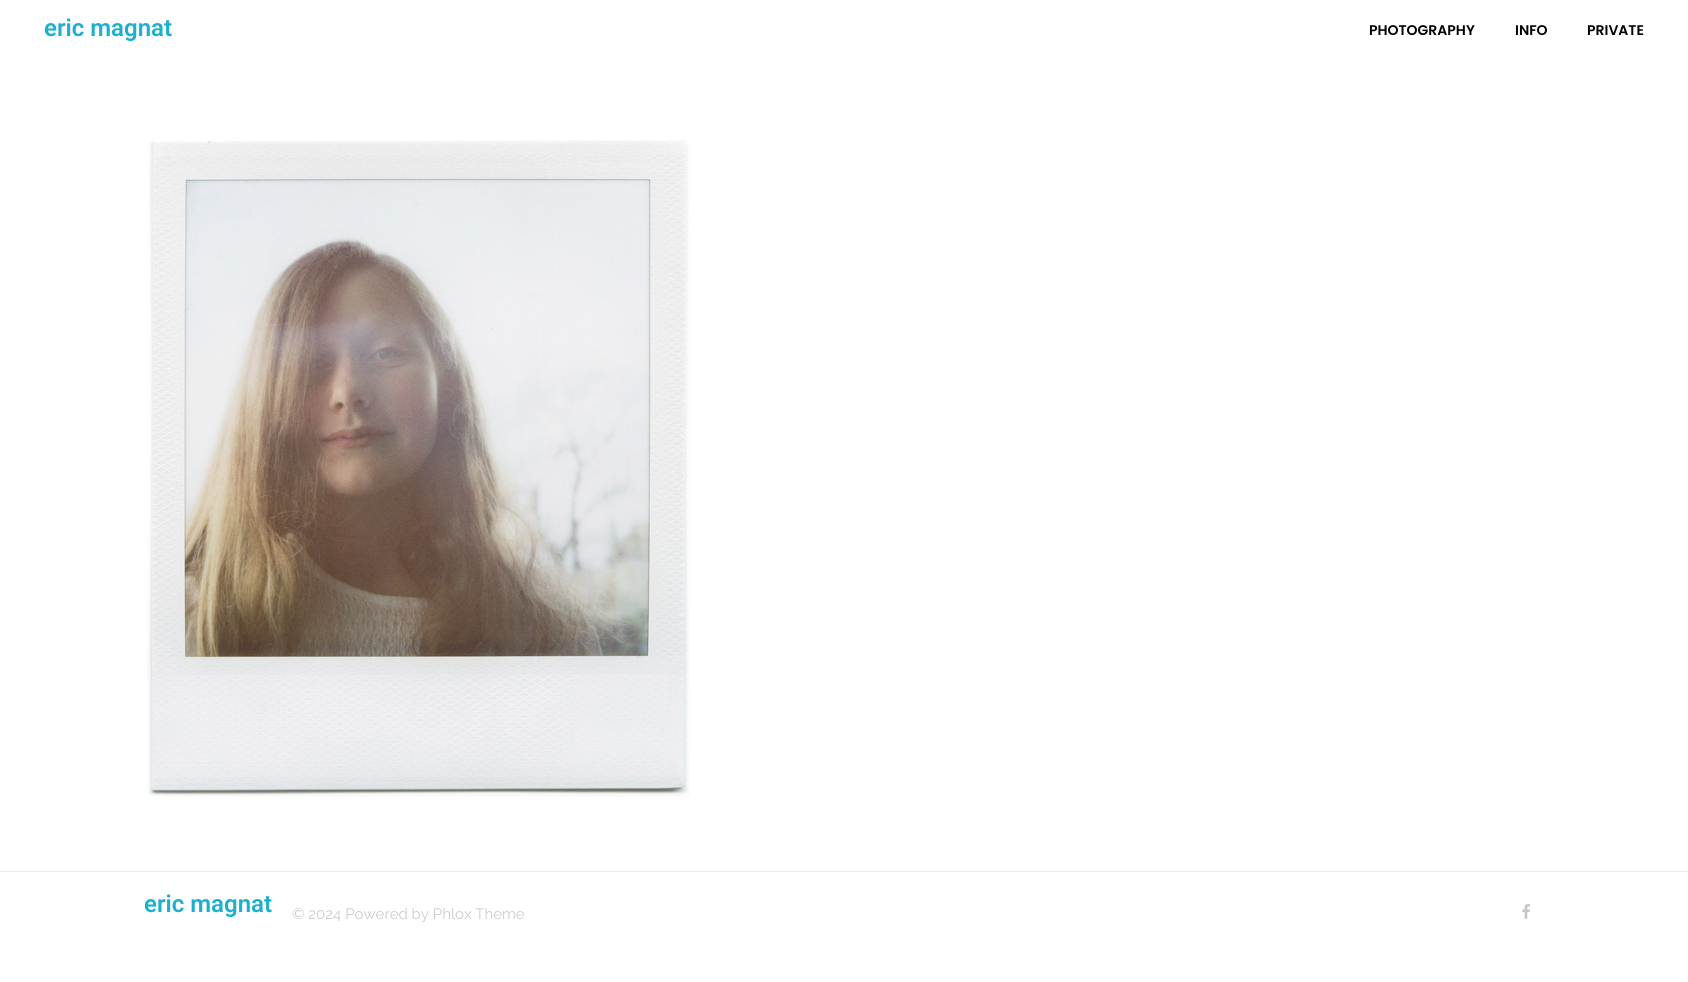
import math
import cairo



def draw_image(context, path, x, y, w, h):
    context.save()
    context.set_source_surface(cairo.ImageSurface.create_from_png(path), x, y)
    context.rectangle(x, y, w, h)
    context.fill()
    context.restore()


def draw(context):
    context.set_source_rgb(1, 1, 1)
    context.paint()
    draw_image(context, "images/1.png", 147, 140, 543, 657)
    context.set_source_rgb(234 / 255, 234 / 255, 234 / 255)
    context.rectangle(0, 871, 1688, 1)
    context.fill()
    draw_image(context, "images/2.png", 1522, 904, 8, 15)
    context.select_font_face("Roboto SemiBold")
    context.set_font_size(24)
    context.set_source_rgb(27 / 255, 176 / 255, 206 / 255)
    context.move_to(44, 36)
    context.show_text("eric magnat")
    context.select_font_face("Poppins SemiBold")
    context.set_font_size(14)
    context.set_source_rgb(0, 0, 0)
    context.move_to(1369, 35)
    context.show_text("PHOTOGRAPHY")
    context.move_to(1515, 35)
    context.show_text("INFO")
    context.move_to(1587, 35)
    context.show_text("PRIVATE")
    context.select_font_face("Roboto SemiBold")
    context.set_font_size(24)
    context.set_source_rgb(27 / 255, 176 / 255, 206 / 255)
    context.move_to(144, 912)
    context.show_text("eric magnat")
    context.select_font_face("Raleway")
    context.set_font_size(15)
    context.set_source_rgb(204 / 255, 204 / 255, 204 / 255)
    context.move_to(292, 919)
    context.show_text("© 2024 Powered by Phlox Theme")


surface = cairo.ImageSurface(cairo.Format.RGB24, 1688, 982)
context = cairo.Context(surface)
options = cairo.FontOptions()
options.set_hint_metrics(cairo.HintMetrics.OFF)
options.set_hint_style(cairo.HintStyle.NONE)
context.set_font_options(options)
context.set_miter_limit(4)
draw(context)
surface.write_to_png("out.png")
